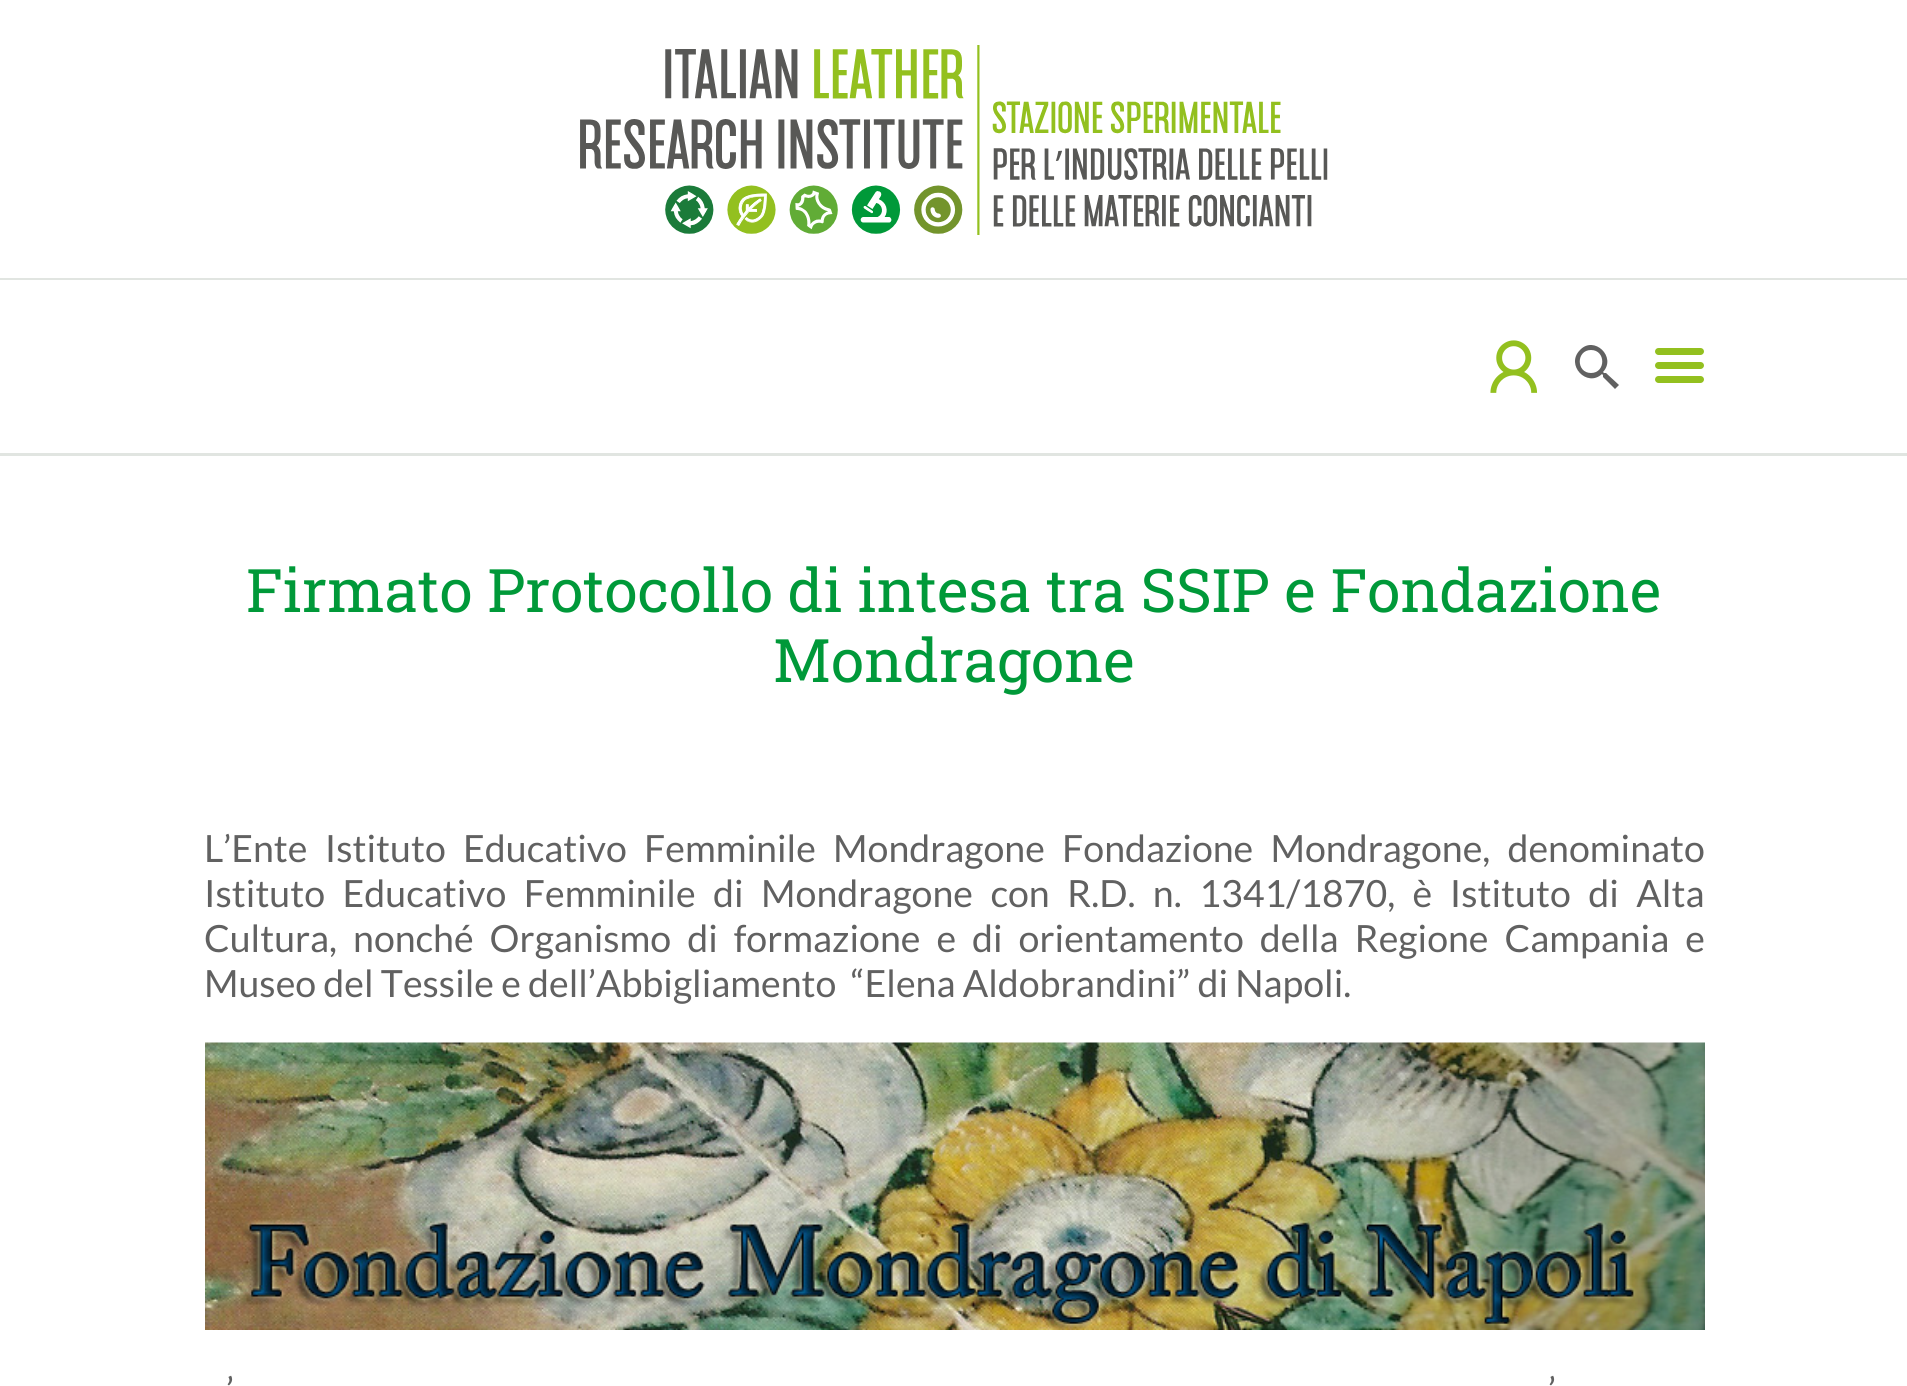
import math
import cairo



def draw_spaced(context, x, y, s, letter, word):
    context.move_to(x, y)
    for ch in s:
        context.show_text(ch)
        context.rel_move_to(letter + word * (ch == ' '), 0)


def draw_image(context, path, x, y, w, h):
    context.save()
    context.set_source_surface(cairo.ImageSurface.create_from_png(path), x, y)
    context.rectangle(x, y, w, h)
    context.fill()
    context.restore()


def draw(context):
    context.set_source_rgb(1, 1, 1)
    context.paint()
    context.set_source_rgb(225 / 255, 229 / 255, 225 / 255)
    context.rectangle(0, 278, 1907, 2)
    context.fill()
    draw_image(context, "images/1.png", 580, 45, 748, 190)
    context.rectangle(0, 453, 1907, 3)
    context.fill()
    draw_image(context, "images/2.png", 1490, 340, 48, 53)
    context.set_source_rgb(97 / 255, 97 / 255, 97 / 255)
    context.new_path()
    context.move_to(1606, 373)
    context.line_to(1604, 373)
    context.line_to(1603, 372)
    context.curve_to(1617, 357, 1594, 335, 1580, 350)
    context.curve_to(1565, 365, 1587, 388, 1602, 374)
    context.line_to(1603, 375)
    context.line_to(1603, 377)
    context.line_to(1615, 389)
    context.line_to(1619, 385)
    context.close_path()
    context.move_to(1591, 373)
    context.curve_to(1576, 373, 1576, 350, 1591, 350)
    context.curve_to(1606, 350, 1606, 373, 1591, 373)
    context.close_path()
    context.fill()
    draw_image(context, "images/3.png", 1655, 348, 49, 35)
    draw_image(context, "images/4.png", 205, 1042, 1500, 288)
    context.select_font_face("Roboto Slab")
    context.set_font_size(60)
    context.set_source_rgb(0, 153 / 255, 57 / 255)
    context.move_to(246, 612)
    context.show_text("Firmato Protocollo di intesa tra SSIP e Fondazione")
    context.move_to(773, 682)
    context.show_text("Mondragone")
    context.select_font_face("Lato")
    context.set_font_size(37.5)
    context.set_source_rgb(97 / 255, 97 / 255, 97 / 255)
    draw_spaced(context, 204, 862, "L’Ente Istituto Educativo Femminile Mondragone Fondazione Mondragone, denominato", 0, 10)
    draw_spaced(context, 204, 907, "Istituto Educativo Femminile di Mondragone con R.D. n. 1341/1870, è Istituto di Alta", 0, 10.25)
    draw_spaced(context, 204, 952, "Cultura, nonché Organismo di formazione e di orientamento della Regione Campania e", 0, 8.75)
    context.move_to(204, 997)
    context.show_text("Museo del Tessile e dell’Abbigliamento  “Elena Aldobrandini” di Napoli.")
    draw_spaced(context, 226, 1404, "’", 0, 4)
    draw_spaced(context, 1548, 1404, "’", 0, 4)


surface = cairo.ImageSurface(cairo.Format.RGB24, 1907, 1386)
context = cairo.Context(surface)
options = cairo.FontOptions()
options.set_hint_metrics(cairo.HintMetrics.OFF)
options.set_hint_style(cairo.HintStyle.NONE)
context.set_font_options(options)
context.set_miter_limit(4)
draw(context)
surface.write_to_png("out.png")
